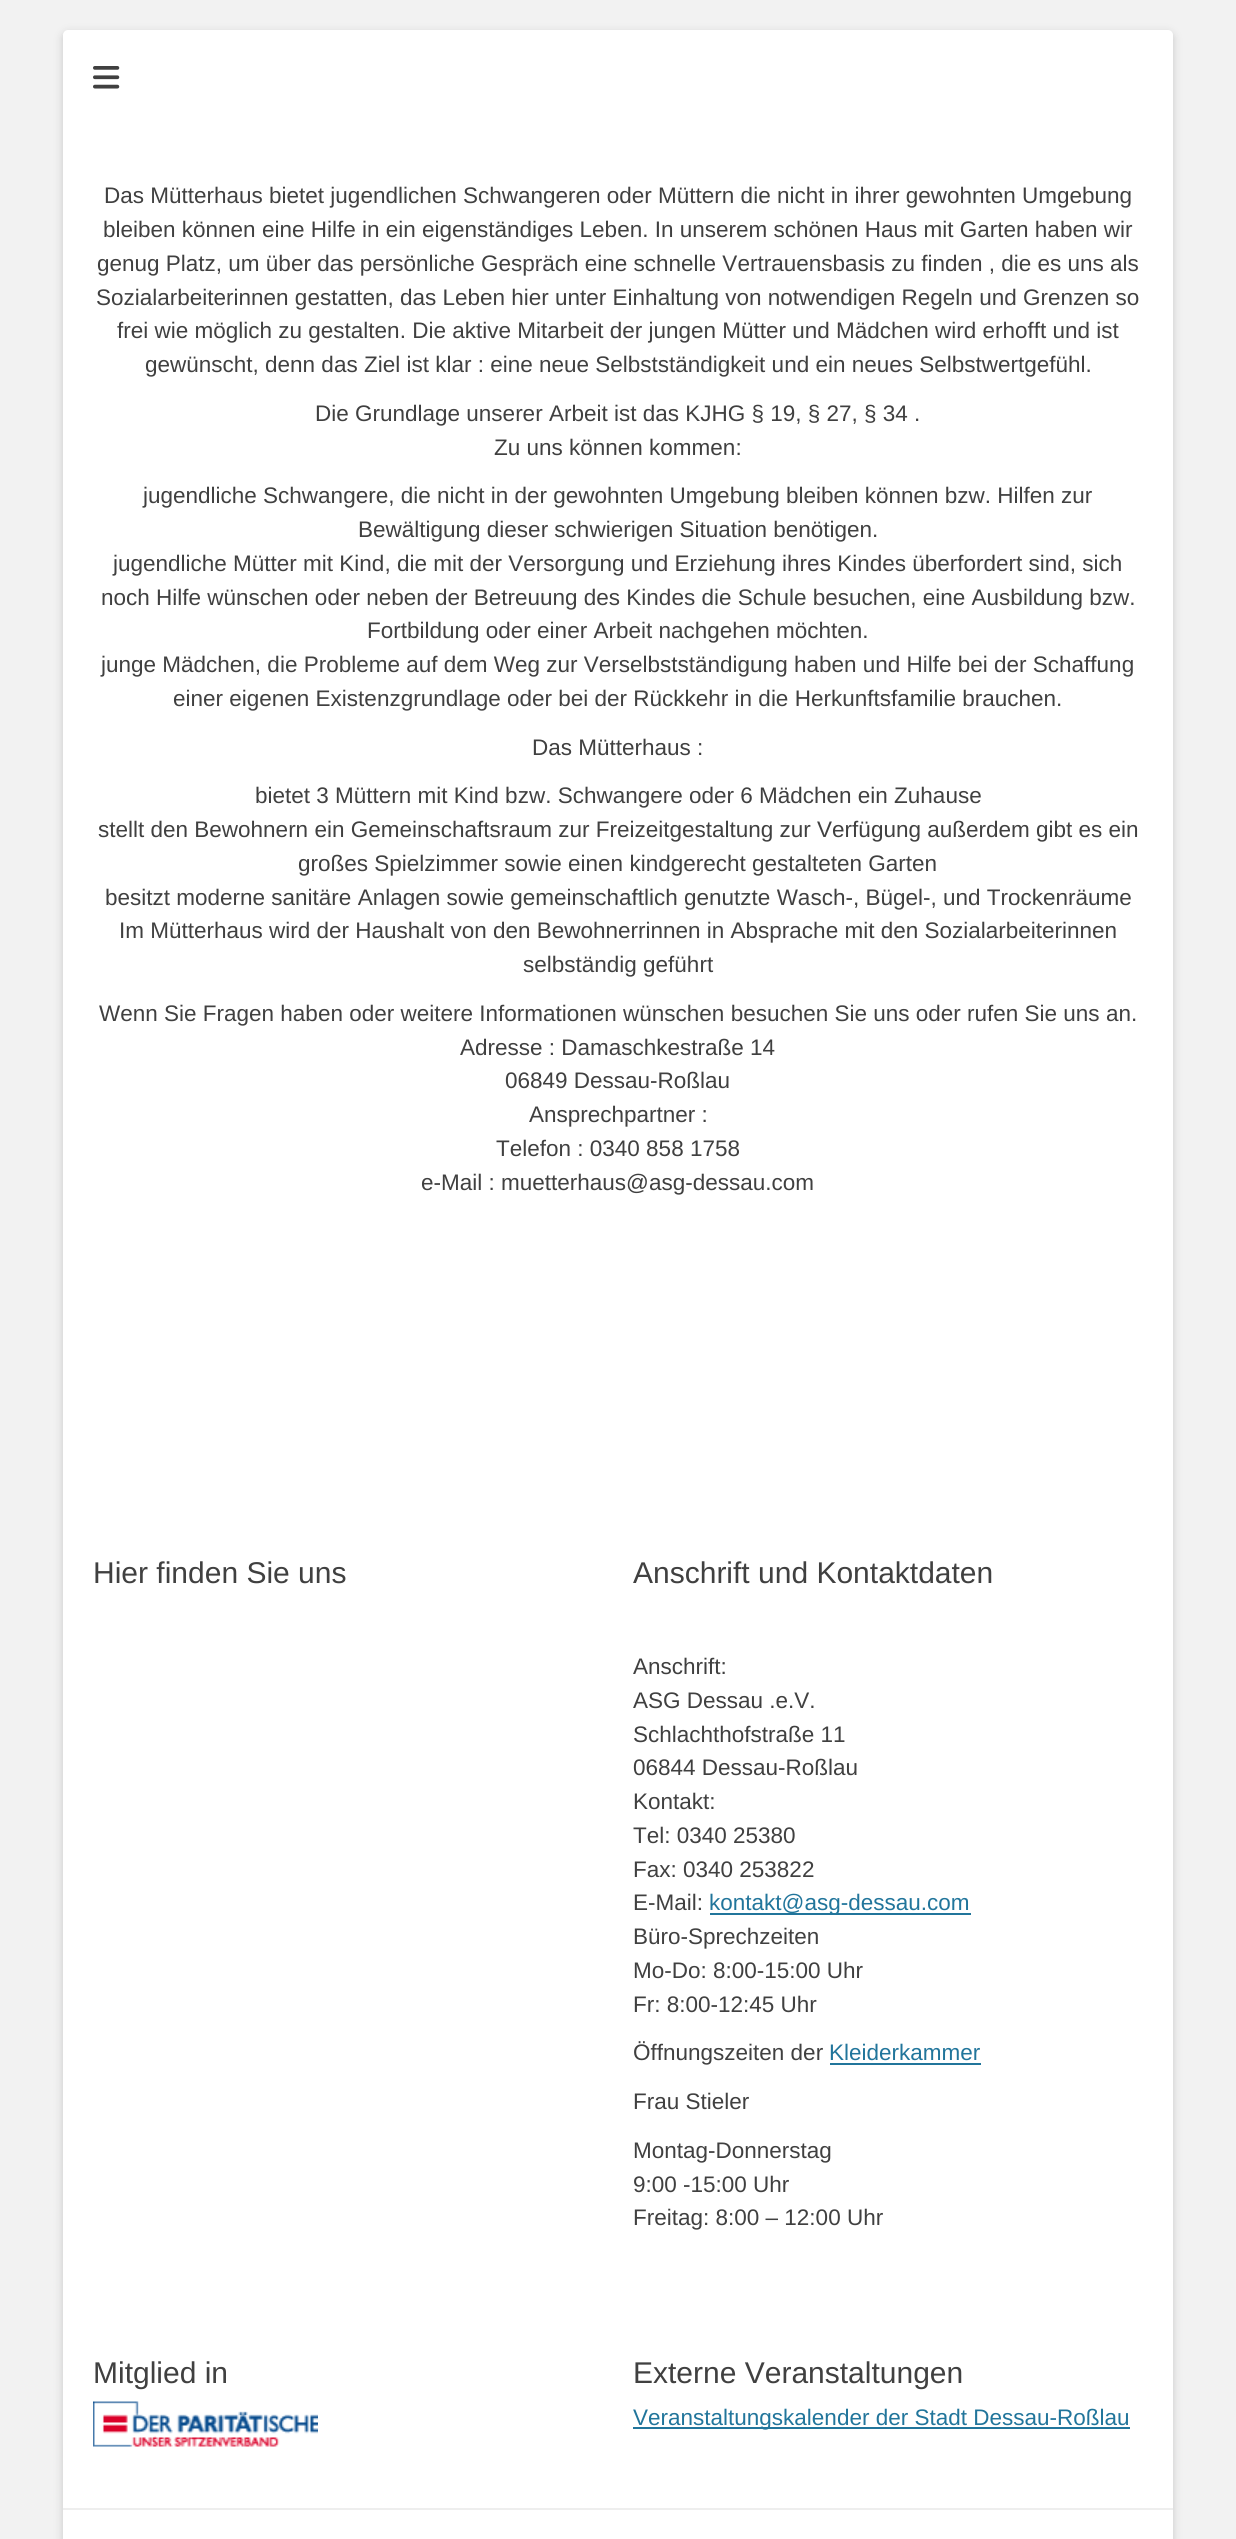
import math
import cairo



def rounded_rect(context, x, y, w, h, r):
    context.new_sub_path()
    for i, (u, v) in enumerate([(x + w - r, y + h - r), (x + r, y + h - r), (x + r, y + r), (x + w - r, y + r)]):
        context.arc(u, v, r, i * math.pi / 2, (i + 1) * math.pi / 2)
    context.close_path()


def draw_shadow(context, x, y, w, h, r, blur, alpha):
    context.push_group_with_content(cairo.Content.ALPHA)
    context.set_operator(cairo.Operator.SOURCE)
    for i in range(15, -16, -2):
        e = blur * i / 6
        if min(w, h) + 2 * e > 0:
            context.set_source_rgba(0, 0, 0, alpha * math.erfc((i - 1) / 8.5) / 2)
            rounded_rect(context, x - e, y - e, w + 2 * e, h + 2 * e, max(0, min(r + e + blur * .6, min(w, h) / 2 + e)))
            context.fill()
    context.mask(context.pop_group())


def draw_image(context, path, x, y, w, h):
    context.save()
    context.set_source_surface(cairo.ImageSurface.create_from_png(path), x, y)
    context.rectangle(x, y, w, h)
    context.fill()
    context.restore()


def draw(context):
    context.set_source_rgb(242 / 255, 242 / 255, 242 / 255)
    context.paint()
    context.set_source_rgb(100 / 255, 100 / 255, 100 / 255)
    draw_shadow(context, 63, 33, 1110, 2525, 5, 4.5, 0.3)
    context.set_source_rgb(1, 1, 1)
    rounded_rect(context, 63, 30, 1110, 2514, 5)
    context.fill()
    draw_image(context, "images/1.png", 93, 66, 27, 23)
    context.set_source_rgb(33 / 255, 117 / 255, 155 / 255)
    context.rectangle(710, 1913, 261, 2)
    context.fill()
    context.rectangle(830, 2063, 151, 2)
    context.fill()
    draw_image(context, "images/2.png", 93, 2401, 225, 46)
    context.rectangle(633, 2427, 497, 2)
    context.fill()
    context.set_source_rgb(238 / 255, 238 / 255, 238 / 255)
    context.rectangle(63, 2508, 1110, 2)
    context.fill()
    context.select_font_face("Liberation Sans")
    context.set_font_size(22.5)
    context.set_source_rgb(64 / 255, 64 / 255, 64 / 255)
    context.move_to(104, 203)
    context.show_text("Das Mütterhaus bietet jugendlichen Schwangeren oder Müttern die nicht in ihrer gewohnten Umgebung")
    context.move_to(103, 237)
    context.show_text("bleiben können eine Hilfe in ein eigenständiges Leben. In unserem schönen Haus mit Garten haben wir")
    context.move_to(97, 271)
    context.show_text("genug Platz, um über das persönliche Gespräch eine schnelle Vertrauensbasis zu finden , die es uns als")
    context.move_to(96, 305)
    context.show_text("Sozialarbeiterinnen gestatten, das Leben hier unter Einhaltung von notwendigen Regeln und Grenzen so")
    context.move_to(117, 338)
    context.show_text("frei wie möglich zu gestalten. Die aktive Mitarbeit der jungen Mütter und Mädchen wird erhofft und ist")
    context.move_to(145, 372)
    context.show_text("gewünscht, denn das Ziel ist klar : eine neue Selbstständigkeit und ein neues Selbstwertgefühl.")
    context.move_to(315, 421)
    context.show_text("Die Grundlage unserer Arbeit ist das KJHG § 19, § 27, § 34 .")
    context.move_to(494, 455)
    context.show_text("Zu uns können kommen:")
    context.move_to(143, 503)
    context.show_text("jugendliche Schwangere, die nicht in der gewohnten Umgebung bleiben können bzw. Hilfen zur")
    context.move_to(358, 537)
    context.show_text("Bewältigung dieser schwierigen Situation benötigen.")
    context.move_to(113, 571)
    context.show_text("jugendliche Mütter mit Kind, die mit der Versorgung und Erziehung ihres Kindes überfordert sind, sich")
    context.move_to(101, 605)
    context.show_text("noch Hilfe wünschen oder neben der Betreuung des Kindes die Schule besuchen, eine Ausbildung bzw.")
    context.move_to(367, 638)
    context.show_text("Fortbildung oder einer Arbeit nachgehen möchten.")
    context.move_to(101, 672)
    context.show_text("junge Mädchen, die Probleme auf dem Weg zur Verselbstständigung haben und Hilfe bei der Schaffung")
    context.move_to(173, 706)
    context.show_text("einer eigenen Existenzgrundlage oder bei der Rückkehr in die Herkunftsfamilie brauchen.")
    context.move_to(532, 755)
    context.show_text("Das Mütterhaus :")
    context.move_to(255, 803)
    context.show_text("bietet 3 Müttern mit Kind bzw. Schwangere oder 6 Mädchen ein Zuhause")
    context.move_to(98, 837)
    context.show_text("stellt den Bewohnern ein Gemeinschaftsraum zur Freizeitgestaltung zur Verfügung außerdem gibt es ein")
    context.move_to(298, 871)
    context.show_text("großes Spielzimmer sowie einen kindgerecht gestalteten Garten")
    context.move_to(105, 905)
    context.show_text("besitzt moderne sanitäre Anlagen sowie gemeinschaftlich genutzte Wasch-, Bügel-, und Trockenräume")
    context.move_to(119, 938)
    context.show_text("Im Mütterhaus wird der Haushalt von den Bewohnerrinnen in Absprache mit den Sozialarbeiterinnen")
    context.move_to(523, 972)
    context.show_text("selbständig geführt")
    context.move_to(99, 1021)
    context.show_text("Wenn Sie Fragen haben oder weitere Informationen wünschen besuchen Sie uns oder rufen Sie uns an.")
    context.move_to(460, 1055)
    context.show_text("Adresse : Damaschkestraße 14")
    context.move_to(505, 1088)
    context.show_text("06849 Dessau-Roßlau")
    context.move_to(529, 1122)
    context.show_text("Ansprechpartner :")
    context.move_to(496, 1156)
    context.show_text("Telefon : 0340 858 1758")
    context.move_to(421, 1190)
    context.show_text("e-Mail : muetterhaus@asg-dessau.com")
    context.set_font_size(30)
    context.move_to(93, 1583)
    context.show_text("Hier finden Sie uns")
    context.move_to(633, 1583)
    context.show_text("Anschrift und Kontaktdaten")
    context.set_font_size(22.5)
    context.move_to(633, 1674)
    context.show_text("Anschrift:")
    context.move_to(633, 1708)
    context.show_text("ASG Dessau .e.V.")
    context.move_to(633, 1742)
    context.show_text("Schlachthofstraße 11")
    context.move_to(633, 1775)
    context.show_text("06844 Dessau-Roßlau")
    context.move_to(633, 1809)
    context.show_text("Kontakt:")
    context.move_to(633, 1843)
    context.show_text("Tel: 0340 25380")
    context.move_to(633, 1877)
    context.show_text("Fax: 0340 253822")
    context.move_to(633, 1910)
    context.show_text("E-Mail:")
    context.set_source_rgb(33 / 255, 117 / 255, 155 / 255)
    context.move_to(709, 1910)
    context.show_text("kontakt@asg-dessau.com")
    context.set_source_rgb(64 / 255, 64 / 255, 64 / 255)
    context.move_to(633, 1944)
    context.show_text("Büro-Sprechzeiten")
    context.move_to(633, 1978)
    context.show_text("Mo-Do: 8:00-15:00 Uhr")
    context.move_to(633, 2012)
    context.show_text("Fr: 8:00-12:45 Uhr")
    context.move_to(633, 2060)
    context.show_text("Öffnungszeiten der")
    context.set_source_rgb(33 / 255, 117 / 255, 155 / 255)
    context.move_to(829, 2060)
    context.show_text("Kleiderkammer")
    context.set_source_rgb(64 / 255, 64 / 255, 64 / 255)
    context.move_to(633, 2109)
    context.show_text("Frau Stieler")
    context.move_to(633, 2158)
    context.show_text("Montag-Donnerstag")
    context.move_to(633, 2192)
    context.show_text("9:00 -15:00 Uhr")
    context.move_to(633, 2225)
    context.show_text("Freitag: 8:00 – 12:00 Uhr")
    context.set_font_size(30)
    context.move_to(93, 2383)
    context.show_text("Mitglied in")
    context.move_to(633, 2383)
    context.show_text("Externe Veranstaltungen")
    context.set_font_size(22.5)
    context.set_source_rgb(33 / 255, 117 / 255, 155 / 255)
    context.move_to(633, 2425)
    context.show_text("Veranstaltungskalender der Stadt Dessau-Roßlau")


surface = cairo.ImageSurface(cairo.Format.RGB24, 1236, 2539)
context = cairo.Context(surface)
options = cairo.FontOptions()
options.set_hint_metrics(cairo.HintMetrics.OFF)
options.set_hint_style(cairo.HintStyle.NONE)
context.set_font_options(options)
context.set_miter_limit(4)
draw(context)
surface.write_to_png("out.png")
